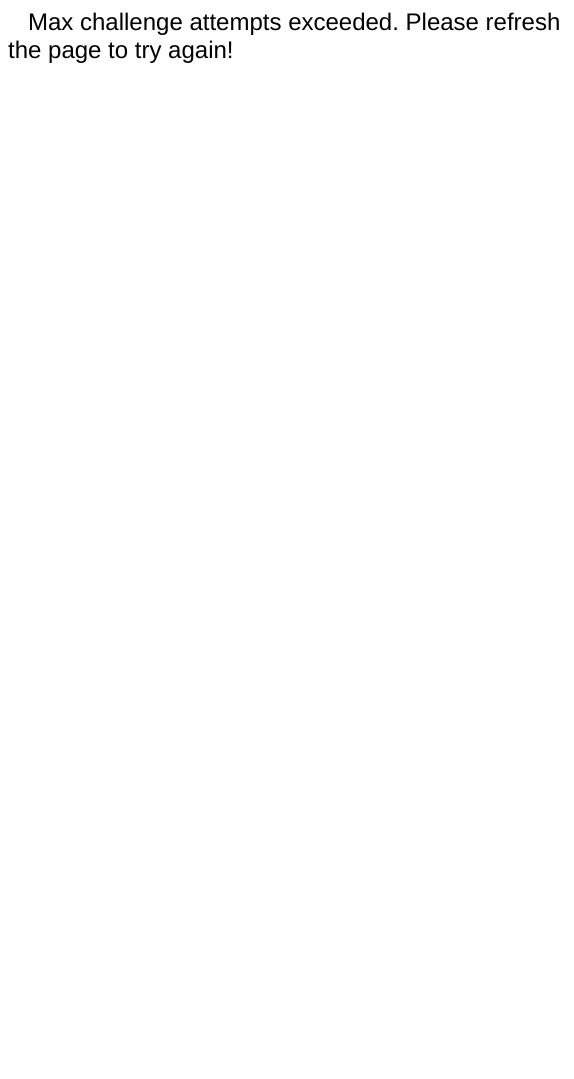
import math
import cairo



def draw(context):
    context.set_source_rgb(1, 1, 1)
    context.paint()
    context.select_font_face("Liberation Sans")
    context.set_font_size(24)
    context.set_source_rgb(0, 0, 0)
    context.move_to(28, 30)
    context.show_text("Max challenge attempts exceeded. Please refresh")
    context.move_to(8, 58)
    context.show_text("the page to try again!")


surface = cairo.ImageSurface(cairo.Format.RGB24, 574, 1079)
context = cairo.Context(surface)
options = cairo.FontOptions()
options.set_hint_metrics(cairo.HintMetrics.OFF)
options.set_hint_style(cairo.HintStyle.NONE)
context.set_font_options(options)
context.set_miter_limit(4)
draw(context)
surface.write_to_png("out.png")
